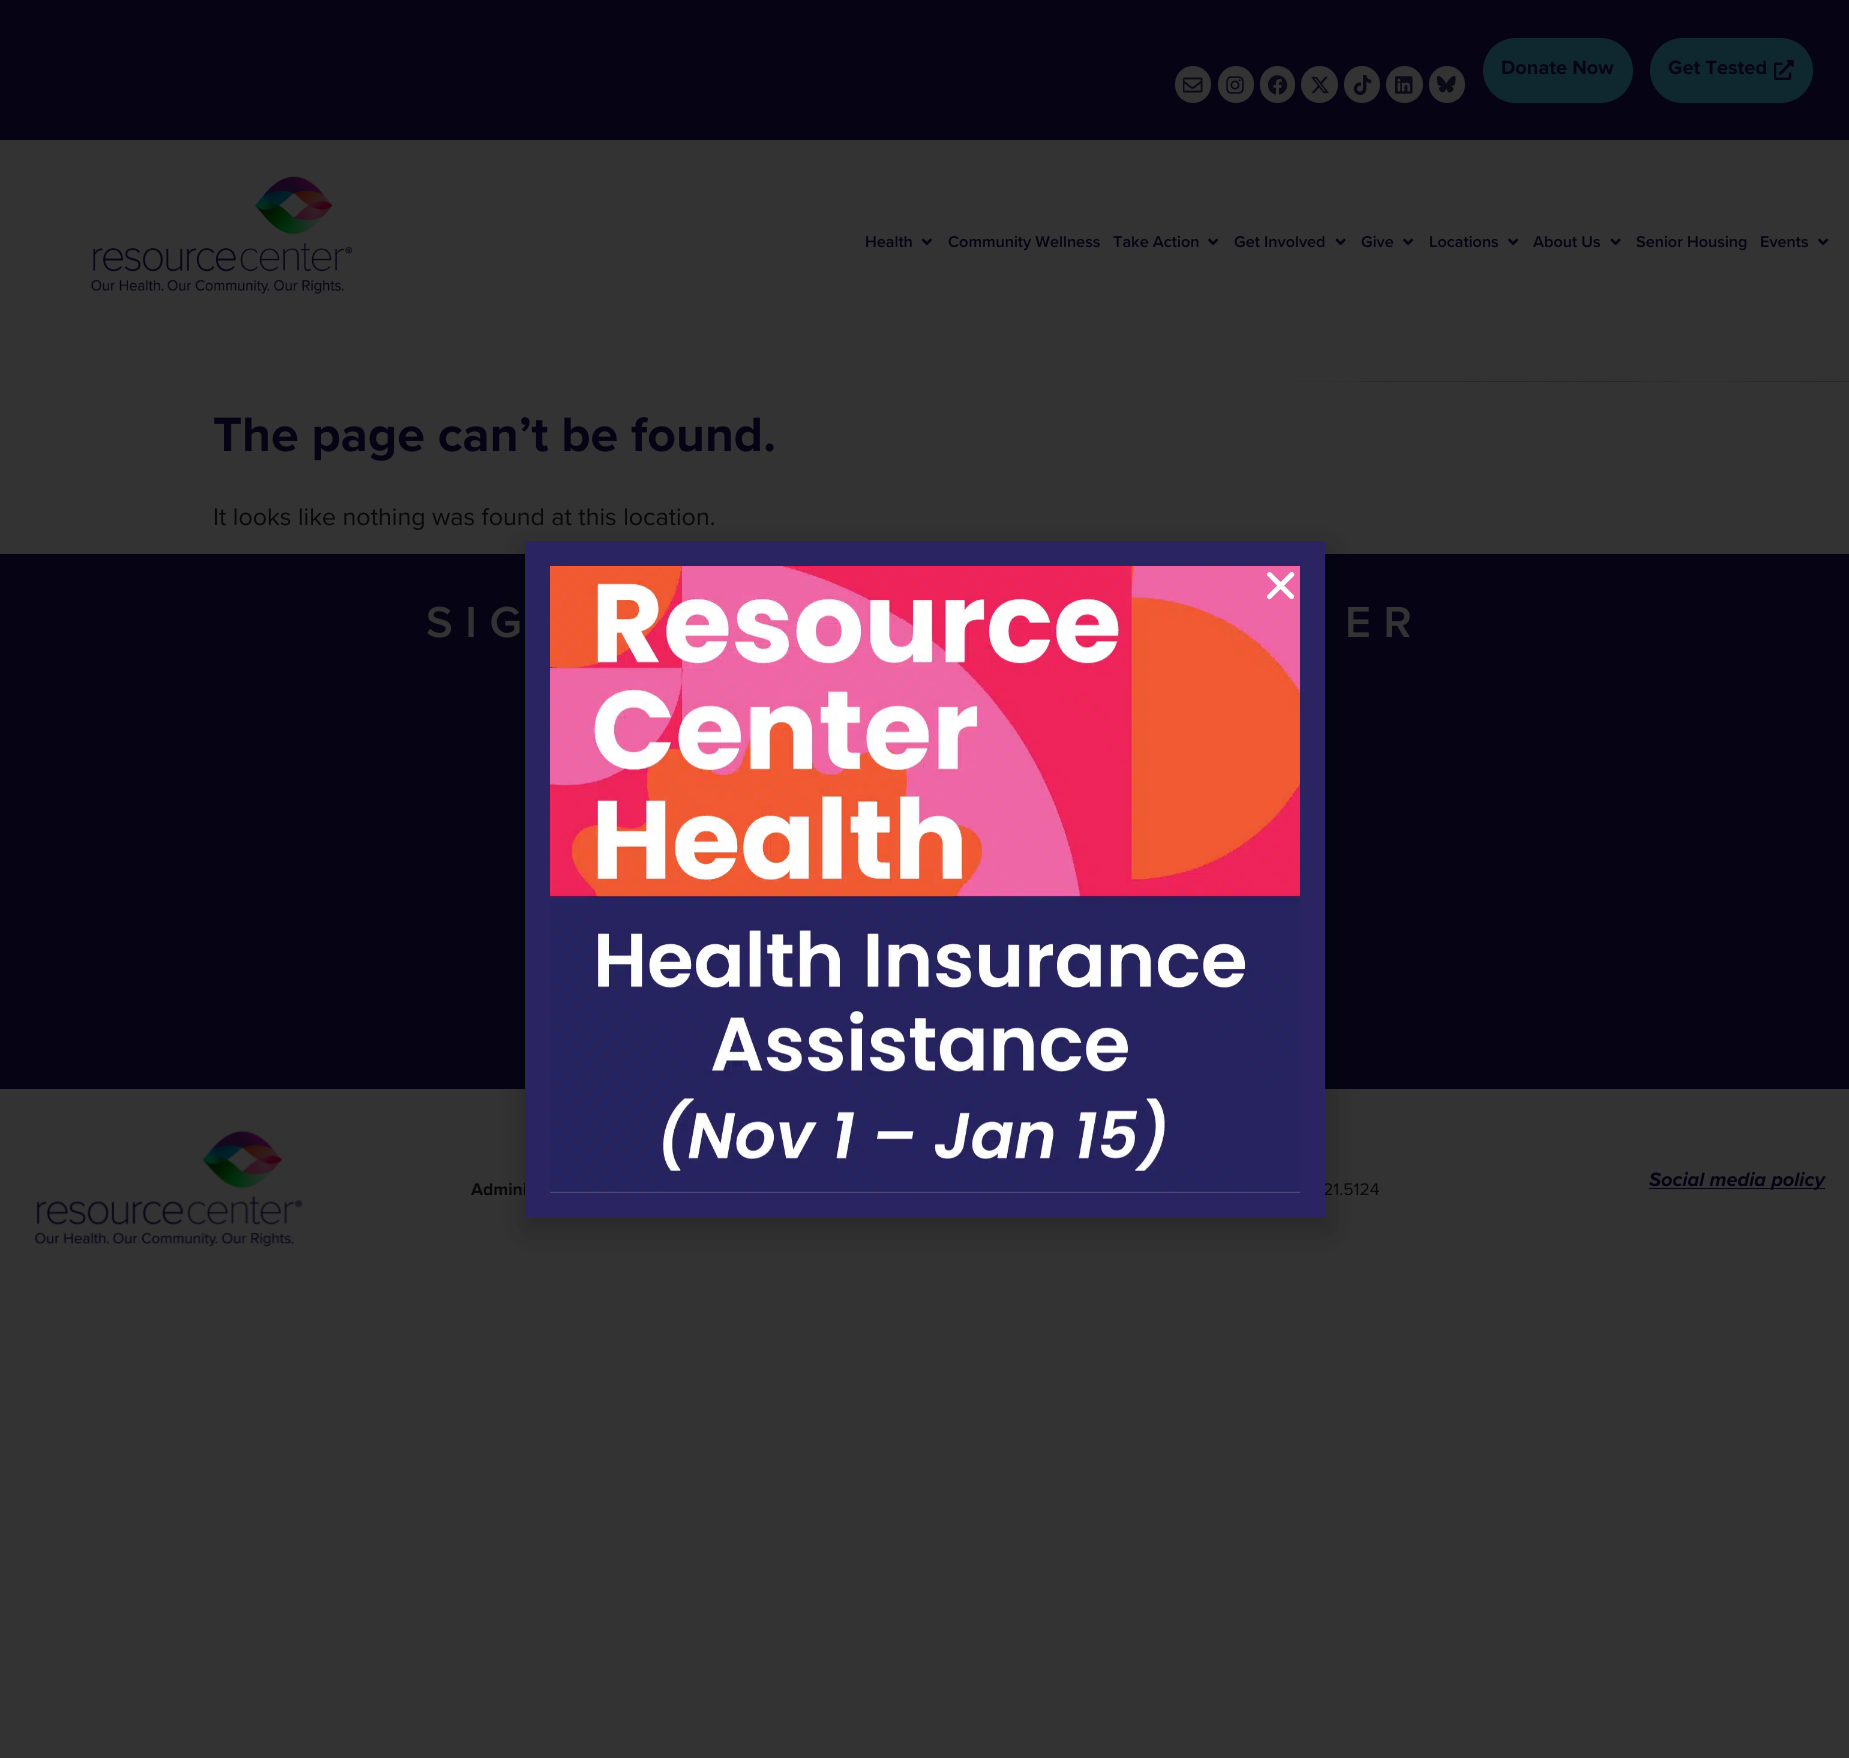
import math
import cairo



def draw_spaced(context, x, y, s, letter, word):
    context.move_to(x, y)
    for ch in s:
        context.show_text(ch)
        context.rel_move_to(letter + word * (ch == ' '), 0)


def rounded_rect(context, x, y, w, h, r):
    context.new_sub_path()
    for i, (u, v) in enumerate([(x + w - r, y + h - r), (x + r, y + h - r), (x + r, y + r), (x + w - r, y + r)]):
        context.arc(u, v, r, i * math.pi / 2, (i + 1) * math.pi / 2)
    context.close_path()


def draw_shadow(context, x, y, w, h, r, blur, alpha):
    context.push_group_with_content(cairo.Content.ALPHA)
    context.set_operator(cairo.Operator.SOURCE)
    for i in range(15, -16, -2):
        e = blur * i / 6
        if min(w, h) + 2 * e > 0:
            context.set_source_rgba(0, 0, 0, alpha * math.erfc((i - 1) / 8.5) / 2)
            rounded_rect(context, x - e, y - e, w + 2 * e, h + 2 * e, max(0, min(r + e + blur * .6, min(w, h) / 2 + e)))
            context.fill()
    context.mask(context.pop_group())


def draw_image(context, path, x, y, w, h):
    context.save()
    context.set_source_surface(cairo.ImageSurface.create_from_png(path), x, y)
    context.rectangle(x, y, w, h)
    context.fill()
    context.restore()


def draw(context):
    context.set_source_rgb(51 / 255, 51 / 255, 51 / 255)
    context.paint()
    draw_image(context, "images/1.png", 1286, 381, 563, 1)
    context.set_source_rgb(6 / 255, 4 / 255, 20 / 255)
    context.rectangle(0, 0, 1849, 140)
    context.fill()
    context.set_source_rgb(51 / 255, 51 / 255, 51 / 255)
    rounded_rect(context, 1175, 66, 36, 37, 18)
    context.fill()
    draw_image(context, "images/2.png", 1183, 77, 20, 16)
    rounded_rect(context, 1218, 66, 36, 37, 18)
    context.fill()
    draw_image(context, "images/3.png", 1226, 76, 18, 18)
    rounded_rect(context, 1260, 66, 35, 37, 17.5)
    context.fill()
    draw_image(context, "images/4.png", 1268, 75, 20, 20)
    context.arc(1319.5, 84.5, 18.5, 0, 2 * math.pi)
    context.fill()
    draw_image(context, "images/5.png", 1311, 76, 18, 18)
    rounded_rect(context, 1344, 66, 36, 37, 18)
    context.fill()
    draw_image(context, "images/6.png", 1353, 75, 19, 20)
    context.arc(1404.5, 84.5, 18.5, 0, 2 * math.pi)
    context.fill()
    draw_image(context, "images/7.png", 1395, 76, 18, 18)
    rounded_rect(context, 1429, 66, 36, 37, 18)
    context.fill()
    draw_image(context, "images/8.png", 1436, 76, 20, 17)
    context.set_source_rgb(15 / 255, 40 / 255, 48 / 255)
    rounded_rect(context, 1483, 38, 150, 65, 32.5)
    context.fill()
    rounded_rect(context, 1650, 38, 163, 65, 32.5)
    context.fill()
    draw_image(context, "images/9.png", 1774, 60, 20, 20)
    draw_image(context, "images/10.png", 91, 176, 262, 118)
    draw_image(context, "images/11.png", 921, 238, 11, 8)
    draw_image(context, "images/12.png", 1208, 238, 11, 8)
    draw_image(context, "images/13.png", 1335, 238, 11, 8)
    draw_image(context, "images/12.png", 1403, 238, 11, 8)
    draw_image(context, "images/12.png", 1508, 238, 11, 8)
    draw_image(context, "images/13.png", 1610, 238, 11, 8)
    draw_image(context, "images/12.png", 1818, 238, 11, 8)
    context.set_source_rgb(6 / 255, 4 / 255, 20 / 255)
    context.rectangle(0, 554, 1849, 535)
    context.fill()
    context.set_source_rgb(0, 0, 0)
    draw_shadow(context, 524, 548, 807, 683, 0, 14.5, 0.2)
    draw_image(context, "images/16.png", 34, 1130, 269, 117)
    context.set_source_rgb(6 / 255, 4 / 255, 20 / 255)
    context.rectangle(1649, 1188, 176, 1)
    context.fill()
    context.select_font_face("Proxima Nova", cairo.FontSlant.NORMAL, cairo.FontWeight.BOLD)
    context.set_font_size(20)
    context.move_to(1501, 74)
    context.show_text("Donate Now")
    context.move_to(1668, 74)
    context.show_text("Get Tested")
    context.select_font_face("Proxima Nova SemiBold")
    context.set_font_size(16.25)
    context.move_to(865, 247)
    context.show_text("Health")
    context.move_to(948, 247)
    context.show_text("Community Wellness")
    context.move_to(1113, 247)
    context.show_text("Take Action")
    context.move_to(1234, 247)
    context.show_text("Get Involved")
    context.move_to(1361, 247)
    context.show_text("Give")
    context.move_to(1429, 247)
    context.show_text("Locations")
    context.move_to(1533, 247)
    context.show_text("About Us")
    context.move_to(1636, 247)
    context.show_text("Senior Housing")
    context.move_to(1760, 247)
    context.show_text("Events")
    context.select_font_face("Proxima Nova", cairo.FontSlant.NORMAL, cairo.FontWeight.BOLD)
    context.set_font_size(50)
    context.move_to(213, 451)
    context.show_text("The page can’t be found.")
    context.select_font_face("Proxima Nova")
    context.set_font_size(25)
    context.set_source_rgb(9 / 255, 9 / 255, 9 / 255)
    context.move_to(213, 525)
    context.show_text("It looks like nothing was found at this location.")
    context.select_font_face("Proxima Nova SemiBold")
    context.set_font_size(45)
    context.set_source_rgb(51 / 255, 51 / 255, 51 / 255)
    draw_spaced(context, 426, 637, "SIG", 12.5, 0)
    draw_spaced(context, 1345, 637, "ER", 12.5, 0)
    context.select_font_face("Proxima Nova", cairo.FontSlant.NORMAL, cairo.FontWeight.BOLD)
    context.set_font_size(17.5)
    context.set_source_rgb(9 / 255, 9 / 255, 9 / 255)
    context.move_to(471, 1195)
    context.show_text("Admini")
    context.select_font_face("Proxima Nova")
    context.move_to(1323, 1195)
    context.show_text("21.5124")
    context.set_source_rgb(43 / 255, 36 / 255, 99 / 255)
    context.rectangle(525, 541, 800, 677)
    context.fill()
    draw_image(context, "images/14.png", 550, 566, 750, 627)
    draw_image(context, "images/15.png", 1266, 571, 29, 29)
    context.select_font_face("Proxima Nova", cairo.FontSlant.ITALIC, cairo.FontWeight.BOLD)
    context.set_font_size(20)
    context.set_source_rgb(6 / 255, 4 / 255, 20 / 255)
    context.move_to(1649, 1186)
    context.show_text("Social media policy")


surface = cairo.ImageSurface(cairo.Format.RGB24, 1849, 1758)
context = cairo.Context(surface)
options = cairo.FontOptions()
options.set_hint_metrics(cairo.HintMetrics.OFF)
options.set_hint_style(cairo.HintStyle.NONE)
context.set_font_options(options)
context.set_miter_limit(4)
draw(context)
surface.write_to_png("out.png")
